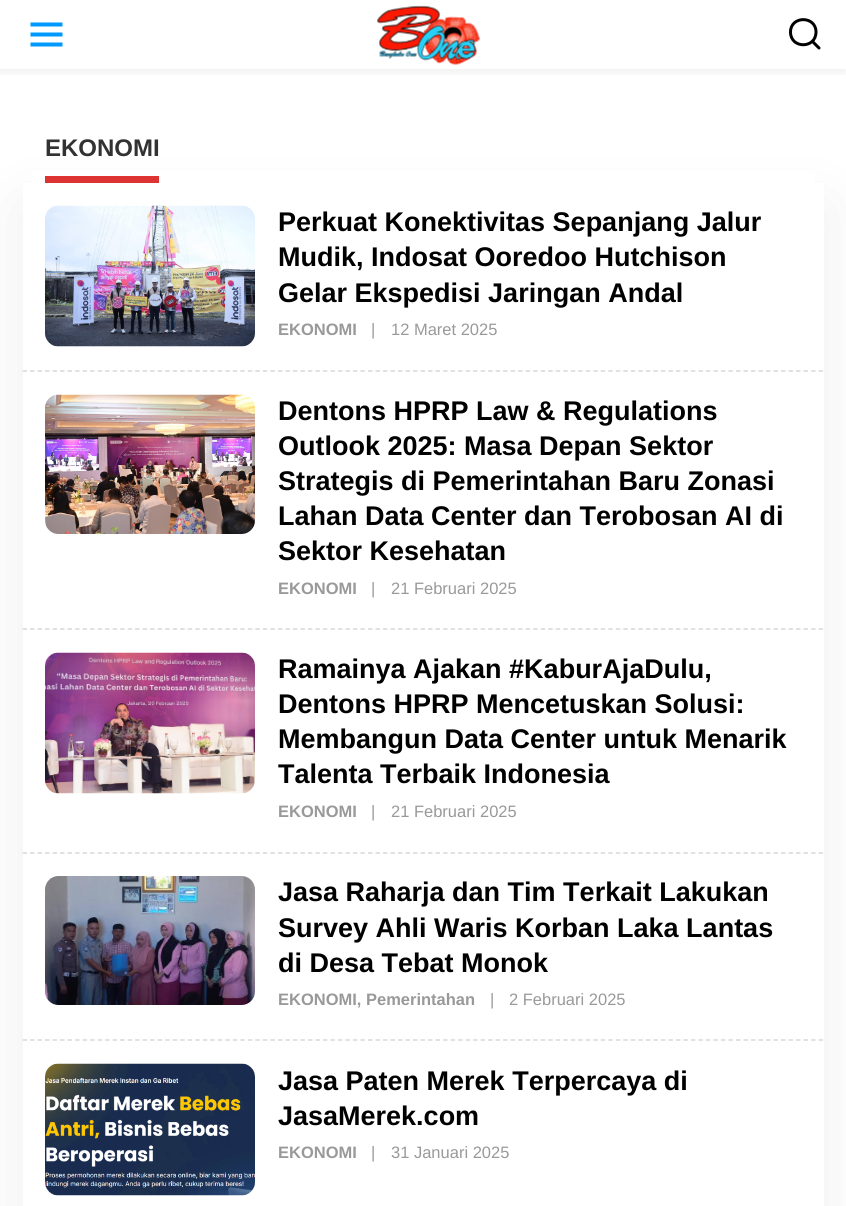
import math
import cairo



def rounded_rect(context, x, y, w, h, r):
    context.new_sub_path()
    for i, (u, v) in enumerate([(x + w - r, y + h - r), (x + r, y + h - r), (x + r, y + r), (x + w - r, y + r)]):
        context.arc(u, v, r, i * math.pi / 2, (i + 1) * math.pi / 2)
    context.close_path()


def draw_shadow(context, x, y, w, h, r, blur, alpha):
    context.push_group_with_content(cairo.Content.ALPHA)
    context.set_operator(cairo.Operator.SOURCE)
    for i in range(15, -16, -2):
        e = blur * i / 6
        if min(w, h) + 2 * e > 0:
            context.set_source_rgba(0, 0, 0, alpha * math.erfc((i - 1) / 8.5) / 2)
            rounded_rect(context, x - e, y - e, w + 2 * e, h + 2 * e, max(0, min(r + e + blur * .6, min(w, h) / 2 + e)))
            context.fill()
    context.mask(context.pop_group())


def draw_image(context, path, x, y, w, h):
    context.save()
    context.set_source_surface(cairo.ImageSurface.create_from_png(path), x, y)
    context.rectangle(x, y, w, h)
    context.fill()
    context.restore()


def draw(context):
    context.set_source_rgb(1, 1, 1)
    context.paint()
    context.save()
    context.rectangle(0, 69, 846, 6)
    context.clip()
    context.set_source_rgb(0, 0, 0)
    draw_shadow(context, 0, 0, 846, 69, 0, 7.5, 0.1)
    context.restore()
    context.set_source_rgb(0, 153 / 255, 1)
    context.new_path()
    context.move_to(30.5, 22.5)
    context.line_to(62.5, 22.5)
    context.line_to(62.5, 26.5)
    context.line_to(30.5, 26.5)
    context.close_path()
    context.move_to(30.5, 32.5)
    context.line_to(62.5, 32.5)
    context.line_to(62.5, 36.5)
    context.line_to(30.5, 36.5)
    context.close_path()
    context.move_to(30.5, 42.5)
    context.line_to(62.5, 42.5)
    context.line_to(62.5, 46.5)
    context.line_to(30.5, 46.5)
    context.close_path()
    context.fill()
    draw_image(context, "images/1.png", 376, 5, 104, 60)
    context.new_path()
    context.move_to(819, 48)
    context.line_to(812.5, 41.5)
    context.move_to(816, 32)
    context.curve_to(816, 49, 790.5, 49, 790.5, 32)
    context.curve_to(790.5, 15.5, 816, 15.5, 816, 32)
    context.close_path()
    context.set_source_rgb(0, 0, 0)
    context.set_line_width(3)
    context.set_line_cap(cairo.LineCap.ROUND)
    context.stroke()
    context.set_source_rgb(0, 0, 0)
    draw_shadow(context, 23, 207, 801, 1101, 0, 34, 0.07)
    context.set_source_rgb(1, 1, 1)
    context.rectangle(32, 171, 783, 12)
    context.fill()
    context.set_source_rgb(221 / 255, 51 / 255, 51 / 255)
    context.rectangle(45, 176, 114, 7)
    context.fill()
    context.set_source_rgb(1, 1, 1)
    context.rectangle(23, 183, 801, 1023)
    context.fill()
    context.new_path()
    context.move_to(22.5, 371)
    context.line_to(823.5, 371)
    context.set_source_rgb(217 / 255, 217 / 255, 217 / 255)
    context.set_line_width(1.5)
    context.set_line_cap(cairo.LineCap.BUTT)
    context.set_dash([4.5, 3.01])
    context.stroke()
    draw_image(context, "images/2.png", 45, 205, 210, 142)
    context.new_path()
    context.move_to(22.5, 629)
    context.line_to(823.5, 629)
    context.stroke()
    draw_image(context, "images/3.png", 45, 394, 210, 140)
    context.new_path()
    context.move_to(22.5, 853)
    context.line_to(823.5, 853)
    context.stroke()
    draw_image(context, "images/4.png", 45, 652, 210, 142)
    context.new_path()
    context.move_to(22.5, 1040)
    context.line_to(823.5, 1040)
    context.stroke()
    draw_image(context, "images/5.png", 45, 876, 210, 129)
    draw_image(context, "images/6.png", 45, 1063, 210, 133)
    context.select_font_face("Liberation Sans", cairo.FontSlant.NORMAL, cairo.FontWeight.BOLD)
    context.set_font_size(24)
    context.set_source_rgb(50 / 255, 50 / 255, 51 / 255)
    context.move_to(45, 156)
    context.show_text("EKONOMI")
    context.set_font_size(27)
    context.set_source_rgb(0, 0, 0)
    context.move_to(278, 231)
    context.show_text("Perkuat Konektivitas Sepanjang Jalur")
    context.move_to(278, 266)
    context.show_text("Mudik, Indosat Ooredoo Hutchison")
    context.move_to(278, 302)
    context.show_text("Gelar Ekspedisi Jaringan Andal")
    context.set_font_size(16.5)
    context.set_source_rgb(153 / 255, 153 / 255, 153 / 255)
    context.move_to(278, 335)
    context.show_text("EKONOMI")
    context.select_font_face("Liberation Sans")
    context.move_to(371, 335)
    context.show_text("|")
    context.move_to(391, 335)
    context.show_text("12 Maret 2025")
    context.select_font_face("Liberation Sans", cairo.FontSlant.NORMAL, cairo.FontWeight.BOLD)
    context.set_font_size(27)
    context.set_source_rgb(0, 0, 0)
    context.move_to(278, 420)
    context.show_text("Dentons HPRP Law & Regulations")
    context.move_to(278, 455)
    context.show_text("Outlook 2025: Masa Depan Sektor")
    context.move_to(278, 490)
    context.show_text("Strategis di Pemerintahan Baru Zonasi")
    context.move_to(278, 525)
    context.show_text("Lahan Data Center dan Terobosan AI di")
    context.move_to(278, 560)
    context.show_text("Sektor Kesehatan")
    context.set_font_size(16.5)
    context.set_source_rgb(153 / 255, 153 / 255, 153 / 255)
    context.move_to(278, 594)
    context.show_text("EKONOMI")
    context.select_font_face("Liberation Sans")
    context.move_to(371, 594)
    context.show_text("|")
    context.move_to(391, 594)
    context.show_text("21 Februari 2025")
    context.select_font_face("Liberation Sans", cairo.FontSlant.NORMAL, cairo.FontWeight.BOLD)
    context.set_font_size(27)
    context.set_source_rgb(0, 0, 0)
    context.move_to(278, 678)
    context.show_text("Ramainya Ajakan #KaburAjaDulu,")
    context.move_to(278, 713)
    context.show_text("Dentons HPRP Mencetuskan Solusi:")
    context.move_to(278, 748)
    context.show_text("Membangun Data Center untuk Menarik")
    context.move_to(278, 783)
    context.show_text("Talenta Terbaik Indonesia")
    context.set_font_size(16.5)
    context.set_source_rgb(153 / 255, 153 / 255, 153 / 255)
    context.move_to(278, 817)
    context.show_text("EKONOMI")
    context.select_font_face("Liberation Sans")
    context.move_to(371, 817)
    context.show_text("|")
    context.move_to(391, 817)
    context.show_text("21 Februari 2025")
    context.select_font_face("Liberation Sans", cairo.FontSlant.NORMAL, cairo.FontWeight.BOLD)
    context.set_font_size(27)
    context.set_source_rgb(0, 0, 0)
    context.move_to(278, 901)
    context.show_text("Jasa Raharja dan Tim Terkait Lakukan")
    context.move_to(278, 937)
    context.show_text("Survey Ahli Waris Korban Laka Lantas")
    context.move_to(278, 972)
    context.show_text("di Desa Tebat Monok")
    context.set_font_size(16.5)
    context.set_source_rgb(153 / 255, 153 / 255, 153 / 255)
    context.move_to(278, 1005)
    context.show_text("EKONOMI, Pemerintahan")
    context.select_font_face("Liberation Sans")
    context.move_to(490, 1005)
    context.show_text("|")
    context.move_to(509, 1005)
    context.show_text("2 Februari 2025")
    context.select_font_face("Liberation Sans", cairo.FontSlant.NORMAL, cairo.FontWeight.BOLD)
    context.set_font_size(27)
    context.set_source_rgb(0, 0, 0)
    context.move_to(278, 1090)
    context.show_text("Jasa Paten Merek Terpercaya di")
    context.move_to(278, 1125)
    context.show_text("JasaMerek.com")
    context.set_font_size(16.5)
    context.set_source_rgb(153 / 255, 153 / 255, 153 / 255)
    context.move_to(278, 1158)
    context.show_text("EKONOMI")
    context.select_font_face("Liberation Sans")
    context.move_to(371, 1158)
    context.show_text("|")
    context.move_to(391, 1158)
    context.show_text("31 Januari 2025")


surface = cairo.ImageSurface(cairo.Format.RGB24, 846, 1206)
context = cairo.Context(surface)
options = cairo.FontOptions()
options.set_hint_metrics(cairo.HintMetrics.OFF)
options.set_hint_style(cairo.HintStyle.NONE)
context.set_font_options(options)
context.set_miter_limit(4)
draw(context)
surface.write_to_png("out.png")
